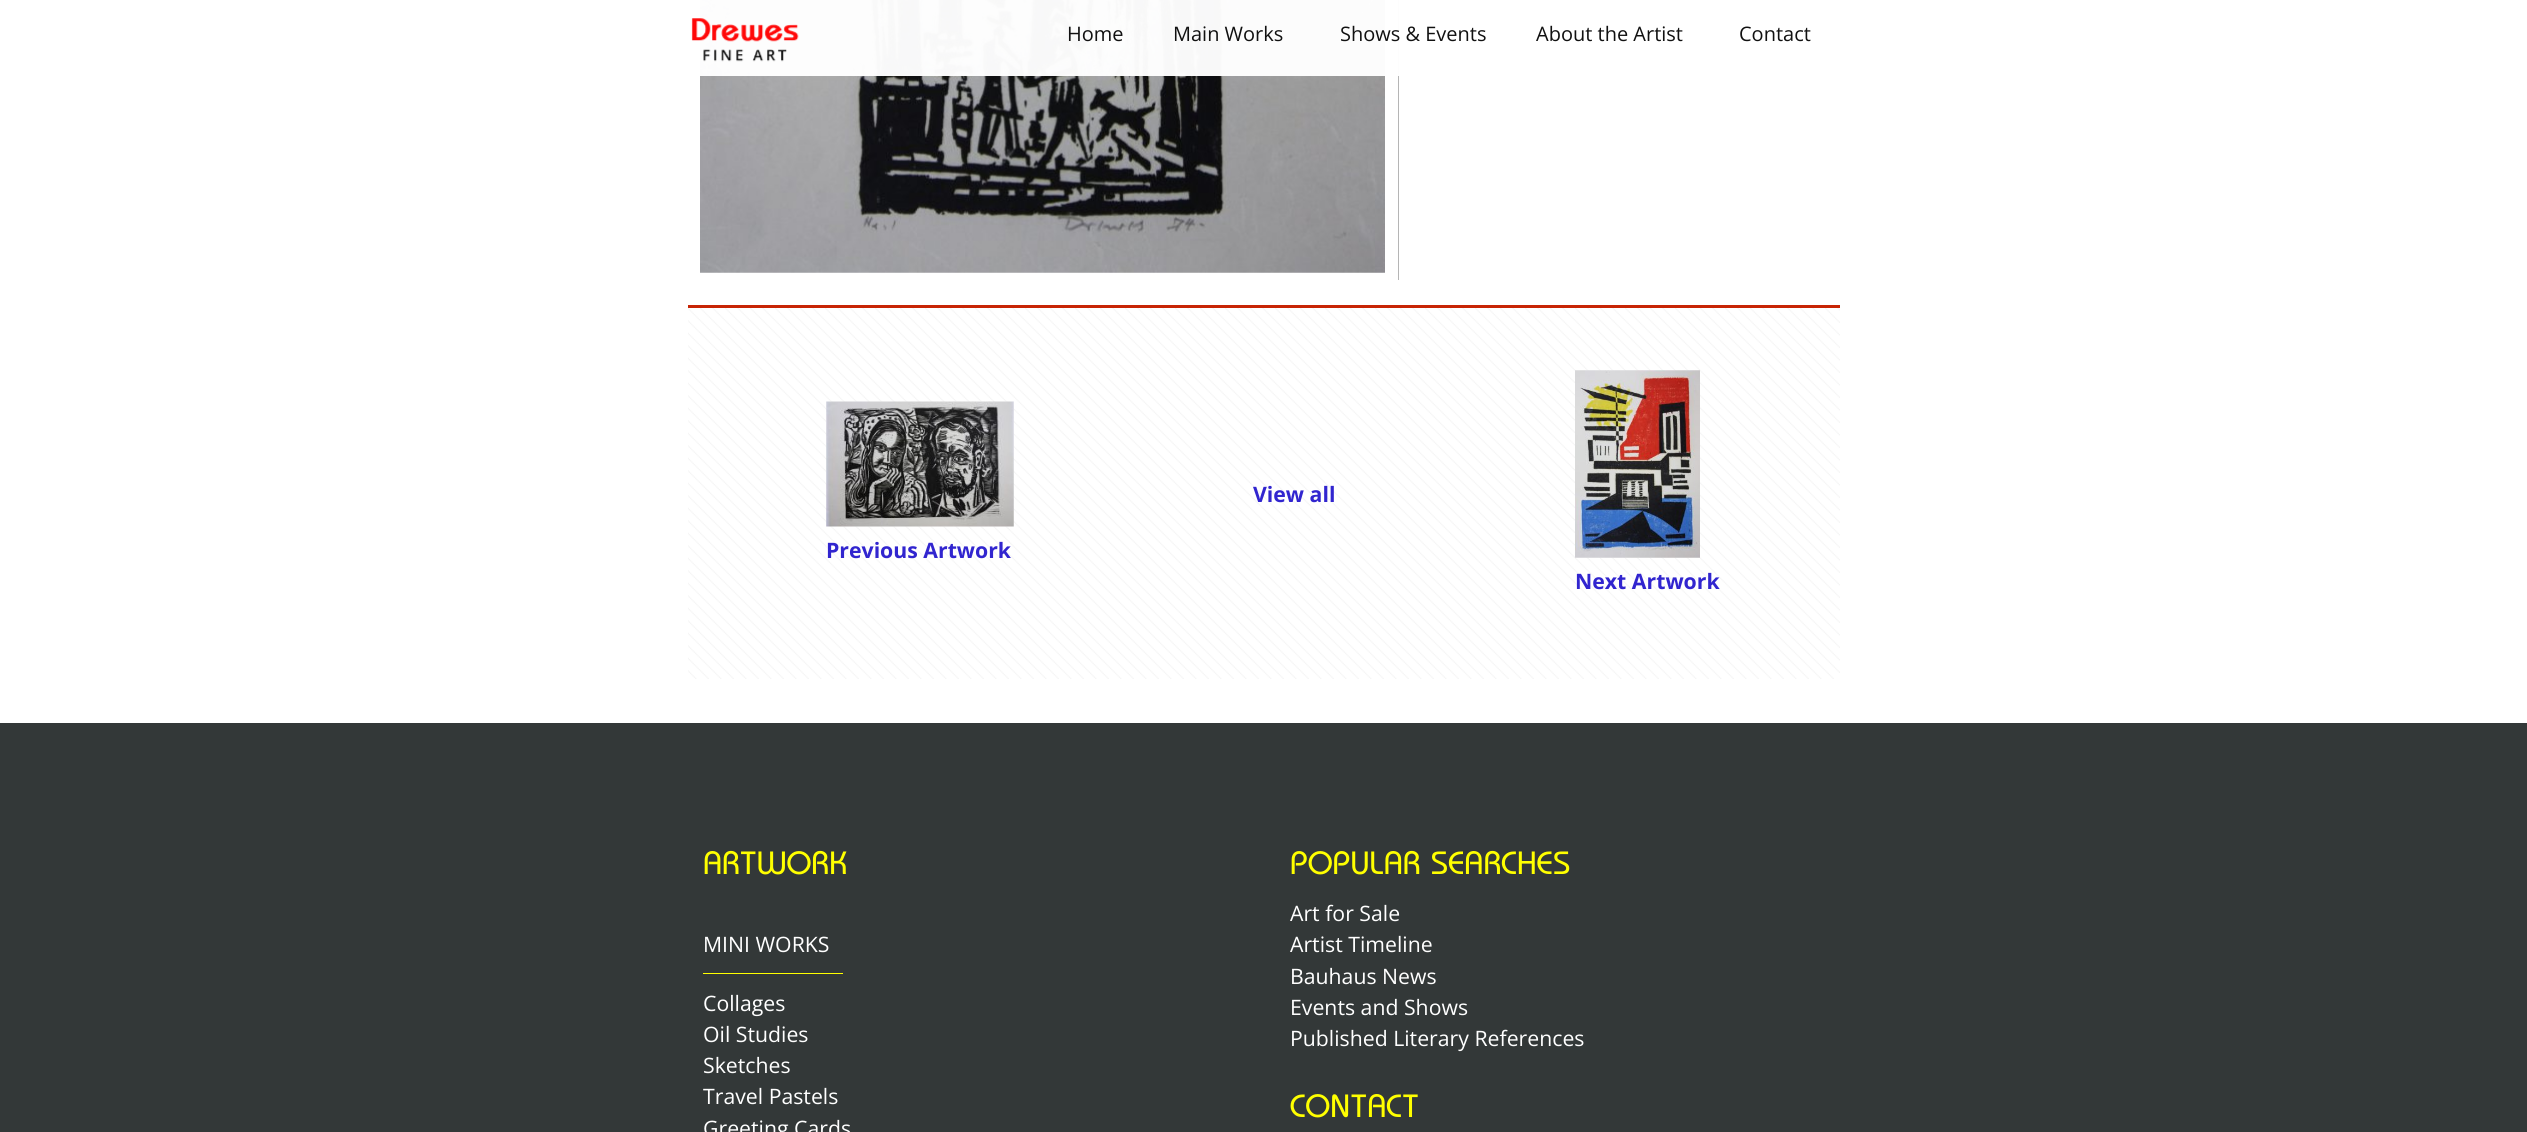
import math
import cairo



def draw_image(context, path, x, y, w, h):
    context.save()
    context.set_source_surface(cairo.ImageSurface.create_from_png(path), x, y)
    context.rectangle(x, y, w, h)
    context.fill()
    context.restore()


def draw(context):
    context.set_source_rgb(1, 1, 1)
    context.paint()
    draw_image(context, "images/2.png", 700, 0, 685, 273)
    context.set_source_rgb(181 / 255, 181 / 255, 181 / 255)
    context.rectangle(1398, 0, 1, 280)
    context.fill()
    context.set_source_rgba(1, 1, 1, 0.97)
    context.rectangle(700, 0, 699, 76)
    context.fill()
    draw_image(context, "images/1.png", 691, 18, 108, 44)
    draw_image(context, "images/3.png", 688, 308, 1152, 371)
    context.set_source_rgb(199 / 255, 36 / 255, 5 / 255)
    context.rectangle(688, 305, 1152, 3)
    context.fill()
    draw_image(context, "images/4.png", 826, 401, 188, 126)
    draw_image(context, "images/5.png", 1575, 370, 125, 188)
    context.set_source_rgb(51 / 255, 56 / 255, 56 / 255)
    context.rectangle(0, 723, 2527, 409)
    context.fill()
    context.set_source_rgb(1, 1, 0)
    context.rectangle(703, 973, 140, 1)
    context.fill()
    context.select_font_face("Open Sans")
    context.set_font_size(20)
    context.set_source_rgb(17 / 255, 17 / 255, 17 / 255)
    context.move_to(1067, 41)
    context.show_text("Home")
    context.move_to(1173, 41)
    context.show_text("Main Works")
    context.move_to(1340, 41)
    context.show_text("Shows & Events")
    context.move_to(1536, 41)
    context.show_text("About the Artist")
    context.move_to(1739, 41)
    context.show_text("Contact")
    context.select_font_face("Open Sans", cairo.FontSlant.NORMAL, cairo.FontWeight.BOLD)
    context.set_font_size(21.25)
    context.set_source_rgb(49 / 255, 37 / 255, 207 / 255)
    context.move_to(1253, 502)
    context.show_text("View all")
    context.move_to(826, 558)
    context.show_text("Previous Artwork")
    context.move_to(1575, 589)
    context.show_text("Next Artwork")
    context.select_font_face("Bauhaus")
    context.set_font_size(33.75)
    context.set_source_rgb(1, 1, 0)
    context.move_to(703, 874)
    context.show_text("ARTWORK")
    context.select_font_face("Open Sans")
    context.set_font_size(21.25)
    context.set_source_rgb(1, 1, 1)
    context.move_to(703, 952)
    context.show_text("MINI WORKS")
    context.move_to(703, 1011)
    context.show_text("Collages")
    context.move_to(703, 1042)
    context.show_text("Oil Studies")
    context.move_to(703, 1073)
    context.show_text("Sketches")
    context.move_to(703, 1104)
    context.show_text("Travel Pastels")
    context.move_to(703, 1136)
    context.show_text("Greeting Cards")
    context.select_font_face("Bauhaus")
    context.set_font_size(33.75)
    context.set_source_rgb(1, 1, 0)
    context.move_to(1290, 874)
    context.show_text("POPULAR SEARCHES")
    context.select_font_face("Open Sans")
    context.set_font_size(21.25)
    context.set_source_rgb(1, 1, 1)
    context.move_to(1290, 921)
    context.show_text("Art for Sale")
    context.move_to(1290, 952)
    context.show_text("Artist Timeline")
    context.move_to(1290, 984)
    context.show_text("Bauhaus News")
    context.move_to(1290, 1015)
    context.show_text("Events and Shows")
    context.move_to(1290, 1046)
    context.show_text("Published Literary References")
    context.select_font_face("Bauhaus")
    context.set_font_size(33.75)
    context.set_source_rgb(1, 1, 0)
    context.move_to(1290, 1117)
    context.show_text("CONTACT")


surface = cairo.ImageSurface(cairo.Format.RGB24, 2527, 1132)
context = cairo.Context(surface)
options = cairo.FontOptions()
options.set_hint_metrics(cairo.HintMetrics.OFF)
options.set_hint_style(cairo.HintStyle.NONE)
context.set_font_options(options)
context.set_miter_limit(4)
draw(context)
surface.write_to_png("out.png")
